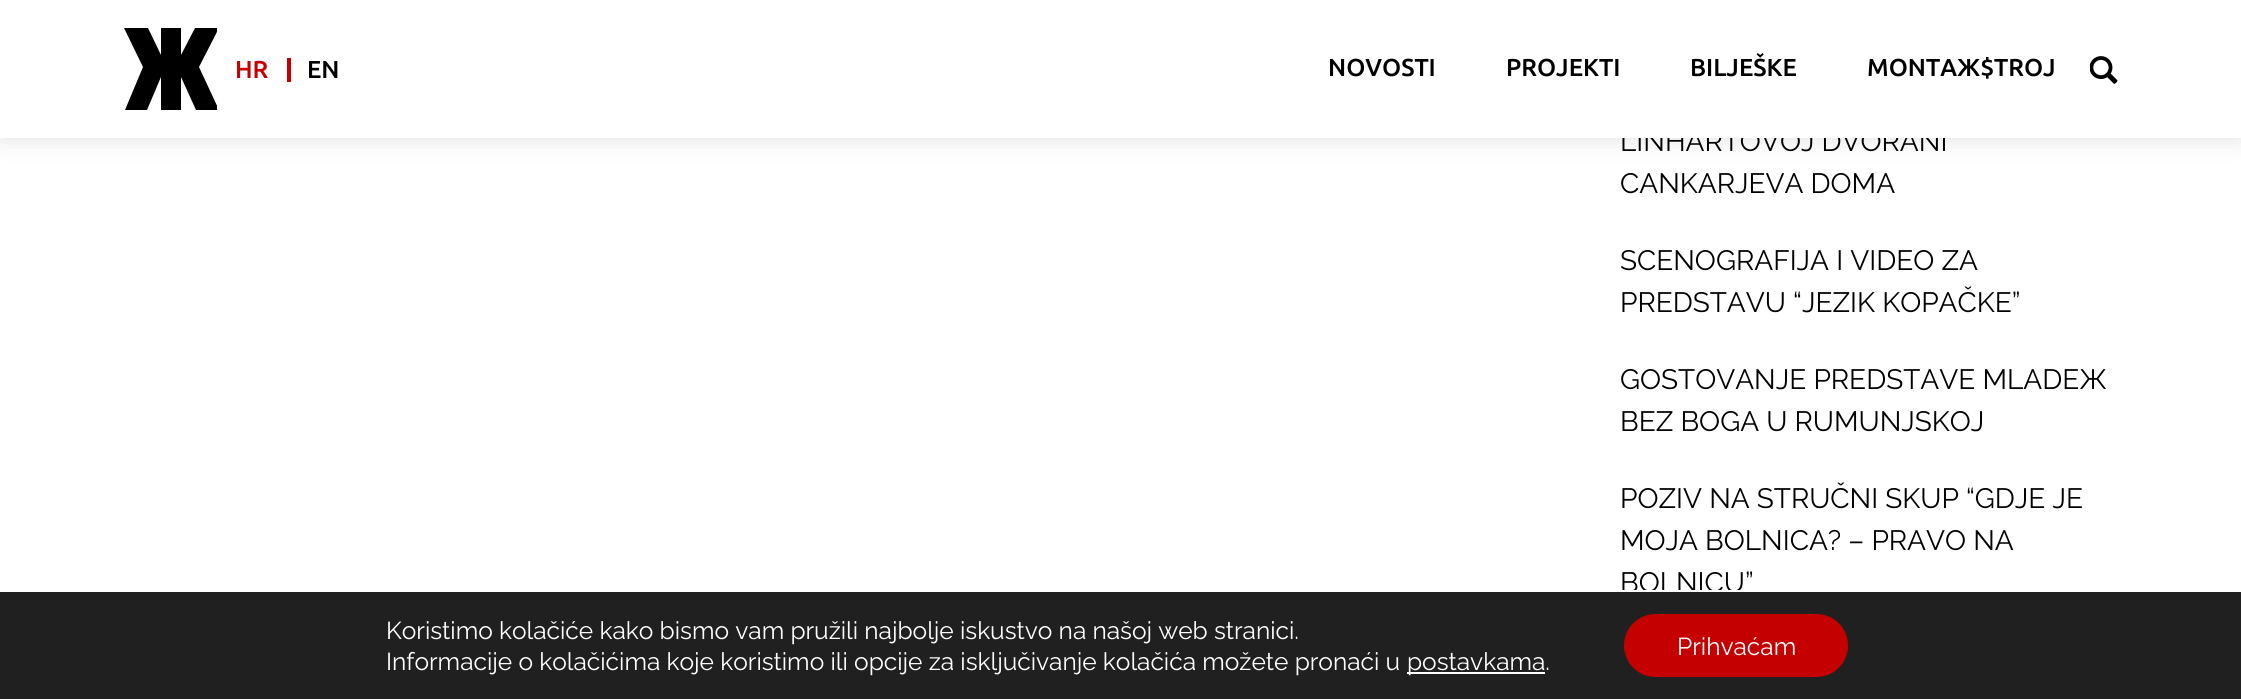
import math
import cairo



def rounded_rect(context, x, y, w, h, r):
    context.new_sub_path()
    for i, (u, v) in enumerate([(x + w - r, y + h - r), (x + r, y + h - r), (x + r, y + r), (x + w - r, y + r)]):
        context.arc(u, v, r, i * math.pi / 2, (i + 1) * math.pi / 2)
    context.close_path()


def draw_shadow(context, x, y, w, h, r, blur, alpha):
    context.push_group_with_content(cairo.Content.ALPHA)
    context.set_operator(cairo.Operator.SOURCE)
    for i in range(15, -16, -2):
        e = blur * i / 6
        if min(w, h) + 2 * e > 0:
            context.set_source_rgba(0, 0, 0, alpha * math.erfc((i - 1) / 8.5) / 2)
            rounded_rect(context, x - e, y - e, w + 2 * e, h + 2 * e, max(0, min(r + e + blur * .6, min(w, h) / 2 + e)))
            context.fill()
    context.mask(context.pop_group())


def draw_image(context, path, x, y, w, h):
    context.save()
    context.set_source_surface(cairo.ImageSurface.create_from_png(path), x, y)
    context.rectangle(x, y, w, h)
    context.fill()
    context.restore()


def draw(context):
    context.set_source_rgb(1, 1, 1)
    context.paint()
    context.set_source_rgb(0, 0, 0)
    draw_shadow(context, 0, 0, 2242, 138, 0, 13, 0.12)
    context.select_font_face("Raleway Thin")
    context.set_font_size(28)
    context.set_source_rgb(0, 0, 0)
    context.move_to(1620, 151)
    context.show_text("LINHARTOVOJ DVORANI")
    context.set_source_rgb(1, 1, 1)
    context.rectangle(0, 0, 2241, 138)
    context.fill()
    draw_image(context, "images/1.png", 2090, 56, 28, 28)
    context.select_font_face("Ubuntu Medium")
    context.set_font_size(24.5)
    context.set_source_rgb(0, 0, 0)
    context.move_to(1867, 76)
    context.show_text("MONTAЖ$TROJ")
    context.move_to(1690, 76)
    context.show_text("BILJEŠKE")
    context.move_to(1506, 76)
    context.show_text("PROJEKTI")
    context.move_to(1328, 76)
    context.show_text("NOVOSTI")
    context.save()
    context.rectangle(124, 28, 93, 82)
    context.clip()
    context.set_fill_rule(cairo.FillRule.EVEN_ODD)
    context.new_path()
    context.move_to(124, 28)
    context.line_to(148, 28)
    context.line_to(161, 55)
    context.line_to(161, 28)
    context.line_to(181, 28)
    context.line_to(181, 55)
    context.line_to(195, 28)
    context.line_to(219, 28)
    context.line_to(199, 67)
    context.line_to(219, 110)
    context.line_to(196, 110)
    context.line_to(181, 77)
    context.line_to(181, 110)
    context.line_to(161, 110)
    context.line_to(161, 77)
    context.line_to(147, 110)
    context.line_to(125, 110)
    context.line_to(143, 67)
    context.close_path()
    context.fill()
    context.restore()
    context.move_to(307, 78)
    context.show_text("EN")
    context.set_source_rgb(196 / 255, 0, 0)
    context.rectangle(287, 58, 4, 24)
    context.fill()
    context.move_to(235, 78)
    context.show_text("HR")
    context.select_font_face("Raleway Thin")
    context.set_font_size(28)
    context.set_source_rgb(0, 0, 0)
    context.move_to(1620, 193)
    context.show_text("CANKARJEVA DOMA")
    context.move_to(1620, 270)
    context.show_text("SCENOGRAFIJA I VIDEO ZA")
    context.move_to(1620, 312)
    context.show_text("PREDSTAVU “JEZIK KOPAČKE”")
    context.move_to(1620, 389)
    context.show_text("GOSTOVANJE PREDSTAVE MLADEЖ")
    context.move_to(1620, 431)
    context.show_text("BEZ BOGA U RUMUNJSKOJ")
    context.move_to(1620, 508)
    context.show_text("POZIV NA STRUČNI SKUP “GDJE JE")
    context.move_to(1620, 550)
    context.show_text("MOJA BOLNICA? – PRAVO NA")
    context.move_to(1620, 592)
    context.show_text("BOLNICU”")
    context.set_source_rgb(32 / 255, 32 / 255, 32 / 255)
    context.rectangle(0, 592, 2241, 107)
    context.fill()
    context.set_source_rgb(1, 1, 1)
    context.rectangle(1622, 590, 118, 2)
    context.fill()
    context.set_font_size(24.5)
    context.move_to(386, 639)
    context.show_text("Koristimo kolačiće kako bismo vam pružili najbolje iskustvo na našoj web stranici.")
    context.move_to(386, 670)
    context.show_text("Informacije o kolačićima koje koristimo ili opcije za isključivanje kolačića možete pronaći u")
    context.rectangle(1407, 672, 138, 2)
    context.fill()
    context.move_to(1407, 670)
    context.show_text("postavkama.")
    context.set_source_rgb(196 / 255, 0, 0)
    rounded_rect(context, 1624, 614, 224, 63, 31.5)
    context.fill()
    context.set_source_rgb(1, 1, 1)
    context.move_to(1677, 655)
    context.show_text("Prihvaćam")


surface = cairo.ImageSurface(cairo.Format.RGB24, 2241, 699)
context = cairo.Context(surface)
options = cairo.FontOptions()
options.set_hint_metrics(cairo.HintMetrics.OFF)
options.set_hint_style(cairo.HintStyle.NONE)
context.set_font_options(options)
context.set_miter_limit(4)
draw(context)
surface.write_to_png("out.png")
